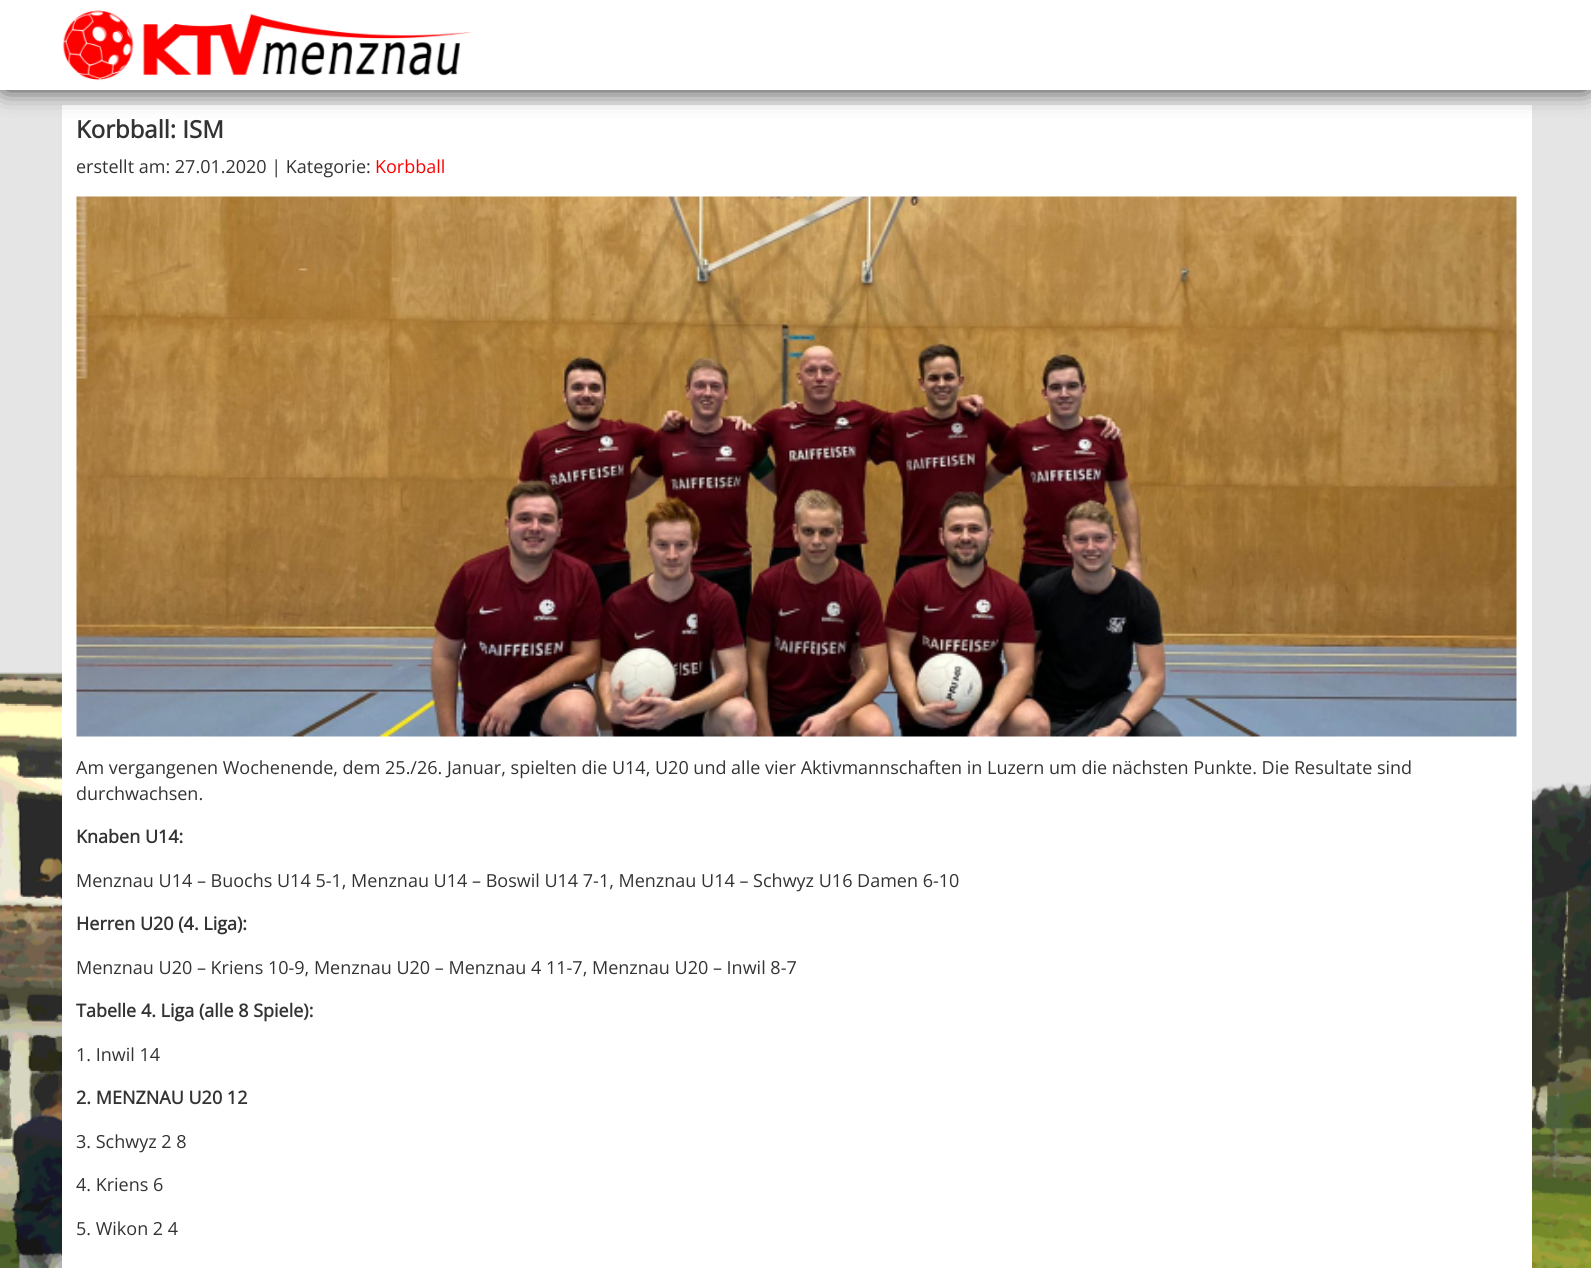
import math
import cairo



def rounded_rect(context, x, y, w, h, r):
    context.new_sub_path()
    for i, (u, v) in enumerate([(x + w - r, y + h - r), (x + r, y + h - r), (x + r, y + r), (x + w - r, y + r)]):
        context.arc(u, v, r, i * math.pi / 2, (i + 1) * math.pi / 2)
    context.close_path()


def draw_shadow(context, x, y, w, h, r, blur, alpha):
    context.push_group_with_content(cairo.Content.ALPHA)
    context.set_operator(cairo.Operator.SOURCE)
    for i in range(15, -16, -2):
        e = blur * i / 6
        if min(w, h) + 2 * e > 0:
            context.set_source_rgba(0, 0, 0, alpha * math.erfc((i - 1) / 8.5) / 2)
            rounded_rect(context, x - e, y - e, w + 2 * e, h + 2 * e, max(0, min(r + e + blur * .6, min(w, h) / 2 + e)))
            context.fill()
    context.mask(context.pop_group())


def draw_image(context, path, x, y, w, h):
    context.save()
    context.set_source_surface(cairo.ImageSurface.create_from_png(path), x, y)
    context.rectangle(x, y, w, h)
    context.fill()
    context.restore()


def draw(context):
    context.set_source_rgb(229 / 255, 229 / 255, 229 / 255)
    context.paint()
    draw_image(context, "images/1.png", 0, 672, 1591, 596)
    context.set_source_rgb(1, 1, 1)
    context.rectangle(62, 105, 1470, 1163)
    context.fill()
    context.set_source_rgb(0, 0, 0)
    draw_shadow(context, 5, 5, 1582, 81, 0, 13, 1)
    context.set_source_rgb(1, 1, 1)
    context.rectangle(0, 0, 1591, 90)
    context.fill()
    draw_image(context, "images/2.png", 62, 10, 412, 71)
    draw_image(context, "images/3.png", 76, 196, 1441, 541)
    context.select_font_face("Open Sans", cairo.FontSlant.NORMAL, cairo.FontWeight.BOLD)
    context.set_font_size(24)
    context.set_source_rgb(51 / 255, 51 / 255, 51 / 255)
    context.move_to(76, 138)
    context.show_text("Korbball: ISM")
    context.select_font_face("Open Sans")
    context.set_font_size(18)
    context.move_to(76, 173)
    context.show_text("erstellt am: 27.01.2020 | Kategorie:")
    context.set_source_rgb(1, 0, 0)
    context.move_to(375, 173)
    context.show_text("Korbball")
    context.set_source_rgb(51 / 255, 51 / 255, 51 / 255)
    context.move_to(76, 774)
    context.show_text("Am vergangenen Wochenende, dem 25./26. Januar, spielten die U14, U20 und alle vier Aktivmannschaften in Luzern um die nächsten Punkte. Die Resultate sind")
    context.move_to(76, 800)
    context.show_text("durchwachsen.")
    context.select_font_face("Open Sans", cairo.FontSlant.NORMAL, cairo.FontWeight.BOLD)
    context.move_to(76, 843)
    context.show_text("Knaben U14:")
    context.select_font_face("Open Sans")
    context.move_to(76, 887)
    context.show_text("Menznau U14 – Buochs U14 5-1, Menznau U14 – Boswil U14 7-1, Menznau U14 – Schwyz U16 Damen 6-10")
    context.select_font_face("Open Sans", cairo.FontSlant.NORMAL, cairo.FontWeight.BOLD)
    context.move_to(76, 930)
    context.show_text("Herren U20 (4. Liga):")
    context.select_font_face("Open Sans")
    context.move_to(76, 974)
    context.show_text("Menznau U20 – Kriens 10-9, Menznau U20 – Menznau 4 11-7, Menznau U20 – Inwil 8-7")
    context.select_font_face("Open Sans", cairo.FontSlant.NORMAL, cairo.FontWeight.BOLD)
    context.move_to(76, 1017)
    context.show_text("Tabelle 4. Liga (alle 8 Spiele):")
    context.select_font_face("Open Sans")
    context.move_to(76, 1061)
    context.show_text("1. Inwil 14")
    context.select_font_face("Open Sans", cairo.FontSlant.NORMAL, cairo.FontWeight.BOLD)
    context.move_to(76, 1104)
    context.show_text("2. MENZNAU U20 12")
    context.select_font_face("Open Sans")
    context.move_to(76, 1148)
    context.show_text("3. Schwyz 2 8")
    context.move_to(76, 1191)
    context.show_text("4. Kriens 6")
    context.move_to(76, 1235)
    context.show_text("5. Wikon 2 4")


surface = cairo.ImageSurface(cairo.Format.RGB24, 1591, 1268)
context = cairo.Context(surface)
options = cairo.FontOptions()
options.set_hint_metrics(cairo.HintMetrics.OFF)
options.set_hint_style(cairo.HintStyle.NONE)
context.set_font_options(options)
context.set_miter_limit(4)
draw(context)
surface.write_to_png("out.png")
